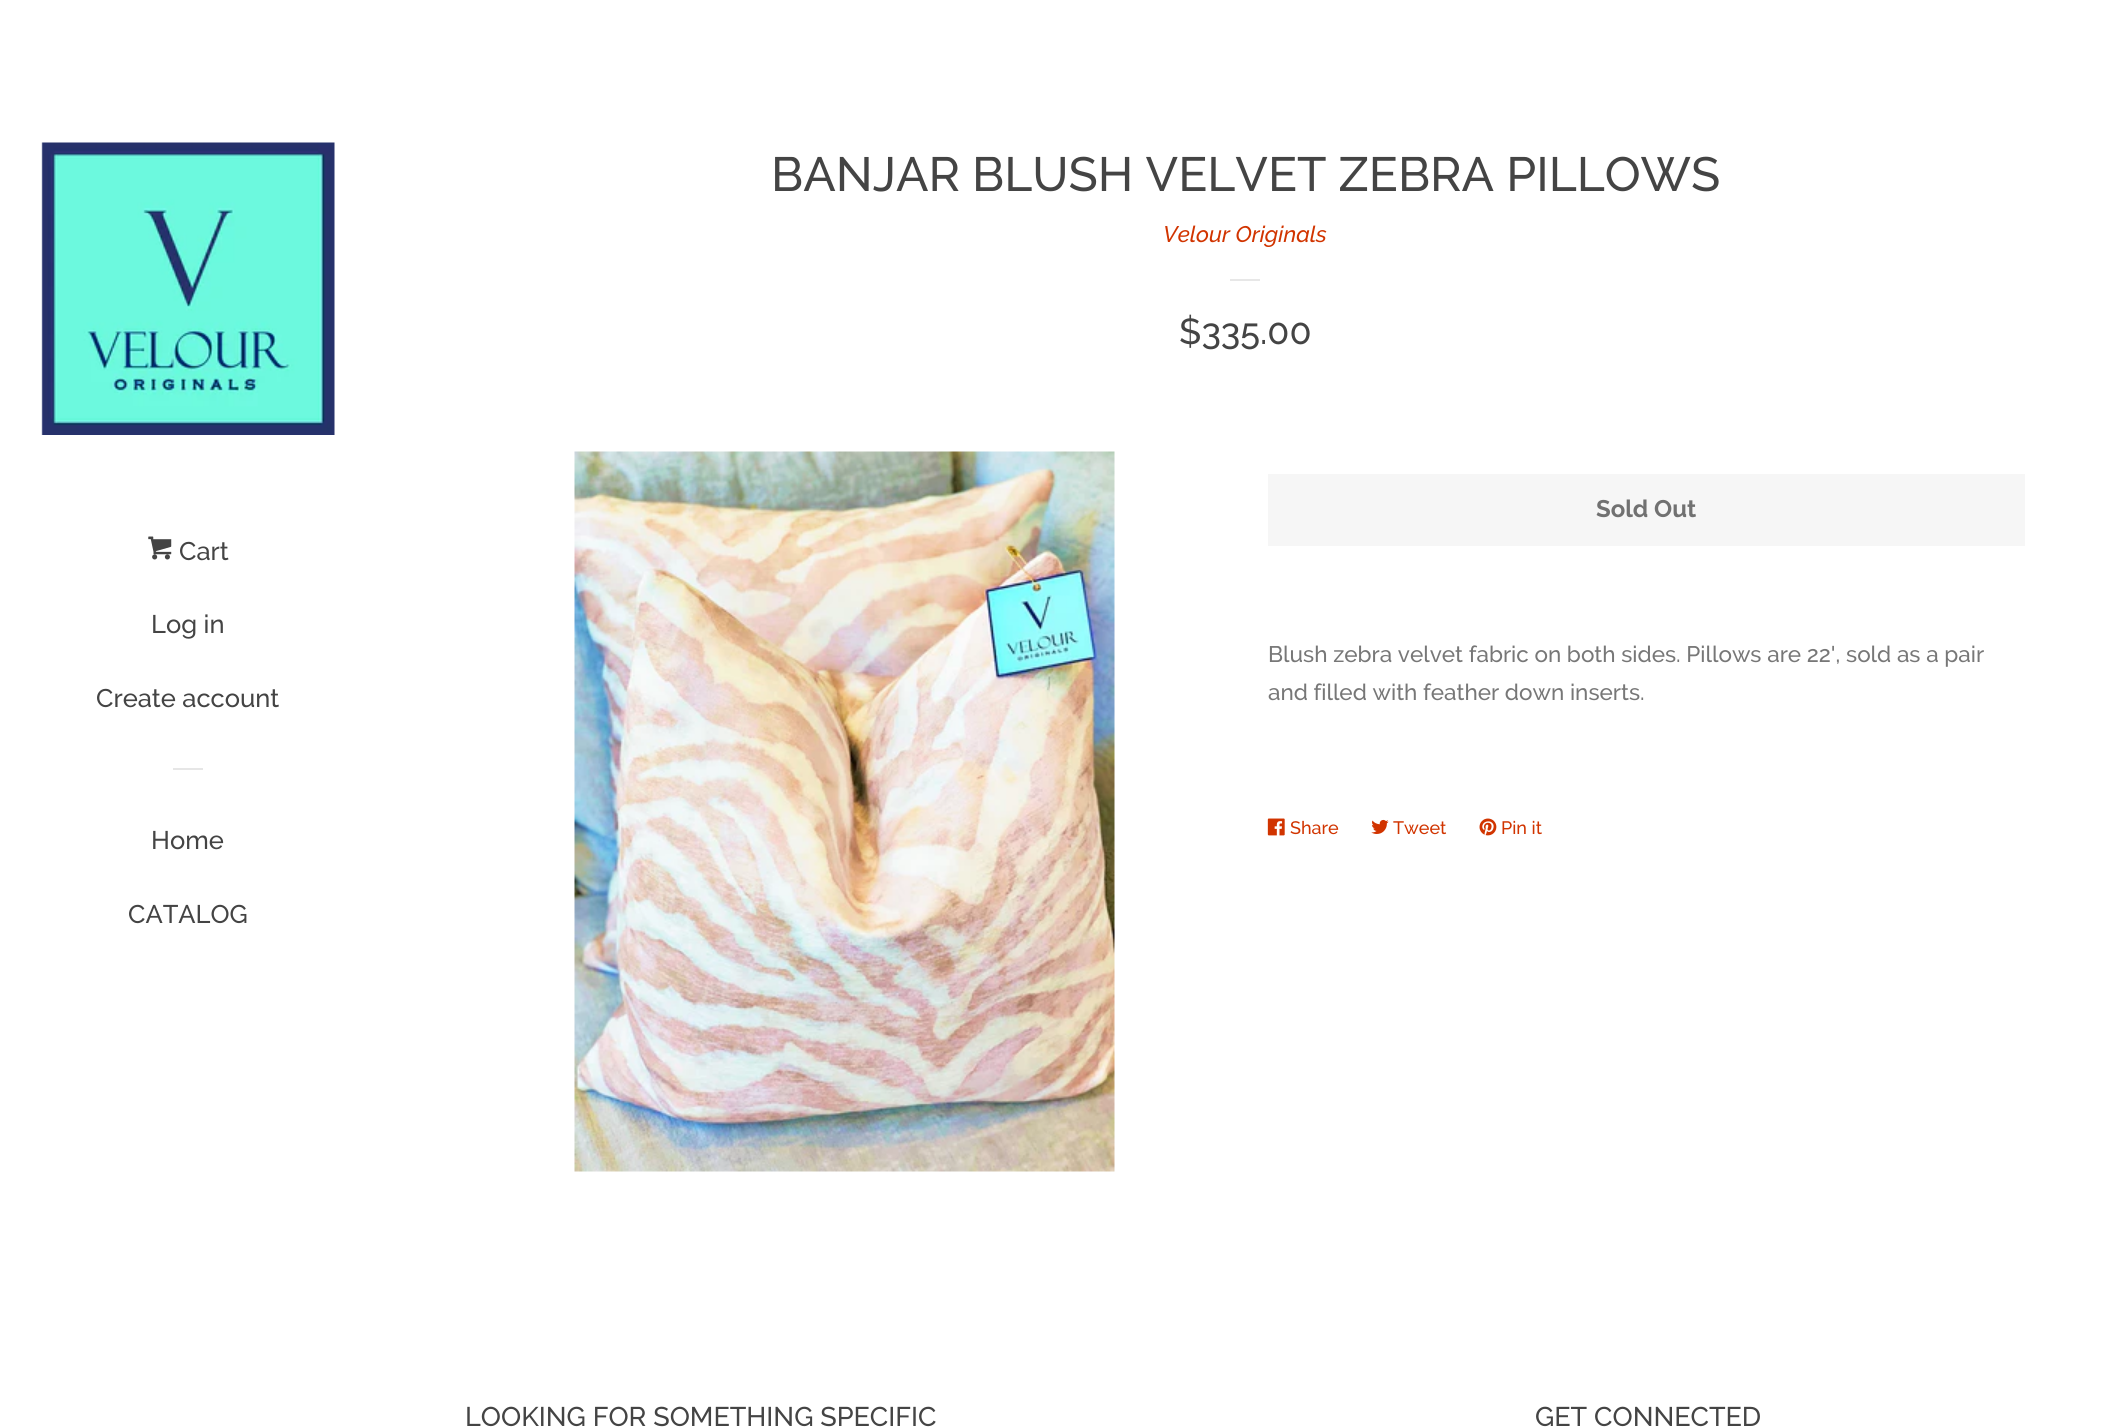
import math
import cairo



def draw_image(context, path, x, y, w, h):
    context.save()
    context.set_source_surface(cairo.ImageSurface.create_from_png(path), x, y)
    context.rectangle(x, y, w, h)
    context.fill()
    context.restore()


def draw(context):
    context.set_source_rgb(1, 1, 1)
    context.paint()
    draw_image(context, "images/1.png", 41, 142, 294, 293)
    draw_image(context, "images/2.png", 148, 536, 24, 24)
    context.set_source_rgb(230 / 255, 230 / 255, 230 / 255)
    context.rectangle(173, 768, 30, 2)
    context.fill()
    context.set_source_rgb(231 / 255, 231 / 255, 231 / 255)
    context.rectangle(1230, 279, 30, 2)
    context.fill()
    draw_image(context, "images/3.png", 574, 451, 541, 721)
    context.set_source_rgb(246 / 255, 246 / 255, 246 / 255)
    context.rectangle(1268, 474, 757, 72)
    context.fill()
    draw_image(context, "images/4.png", 1267, 818, 18, 18)
    draw_image(context, "images/5.png", 1371, 819, 18, 15)
    draw_image(context, "images/6.png", 1479, 818, 18, 18)
    context.select_font_face("Raleway Medium")
    context.set_font_size(25.5)
    context.set_source_rgb(68 / 255, 68 / 255, 68 / 255)
    context.move_to(179, 560)
    context.show_text("Cart")
    context.move_to(151, 633)
    context.show_text("Log in")
    context.move_to(96, 707)
    context.show_text("Create account")
    context.move_to(151, 849)
    context.show_text("Home")
    context.move_to(128, 923)
    context.show_text("CATALOG")
    context.set_font_size(48)
    context.move_to(771, 191)
    context.show_text("BANJAR BLUSH VELVET ZEBRA PILLOWS")
    context.select_font_face("Raleway Medium", cairo.FontSlant.ITALIC)
    context.set_font_size(22.5)
    context.set_source_rgb(209 / 255, 52 / 255, 0)
    context.move_to(1163, 242)
    context.show_text("Velour Originals")
    context.select_font_face("Raleway Medium")
    context.set_font_size(36)
    context.set_source_rgb(68 / 255, 68 / 255, 68 / 255)
    context.move_to(1179, 344)
    context.show_text("$335.00")
    context.select_font_face("Raleway", cairo.FontSlant.NORMAL, cairo.FontWeight.BOLD)
    context.set_font_size(24)
    context.set_source_rgb(113 / 255, 113 / 255, 113 / 255)
    context.move_to(1596, 517)
    context.show_text("Sold Out")
    context.select_font_face("Raleway Medium")
    context.set_font_size(22.5)
    context.set_source_rgb(119 / 255, 119 / 255, 119 / 255)
    context.move_to(1268, 662)
    context.show_text("Blush zebra velvet fabric on both sides. Pillows are 22', sold as a pair")
    context.move_to(1268, 700)
    context.show_text("and filled with feather down inserts.")
    context.set_font_size(18)
    context.set_source_rgb(209 / 255, 52 / 255, 0)
    context.move_to(1290, 834)
    context.show_text("Share")
    context.move_to(1393, 834)
    context.show_text("Tweet")
    context.move_to(1501, 834)
    context.show_text("Pin it")
    context.set_font_size(27)
    context.set_source_rgb(68 / 255, 68 / 255, 68 / 255)
    context.move_to(465, 1426)
    context.show_text("LOOKING FOR SOMETHING SPECIFIC")
    context.move_to(1535, 1426)
    context.show_text("GET CONNECTED")


surface = cairo.ImageSurface(cairo.Format.RGB24, 2115, 1427)
context = cairo.Context(surface)
options = cairo.FontOptions()
options.set_hint_metrics(cairo.HintMetrics.OFF)
options.set_hint_style(cairo.HintStyle.NONE)
context.set_font_options(options)
context.set_miter_limit(4)
draw(context)
surface.write_to_png("out.png")
